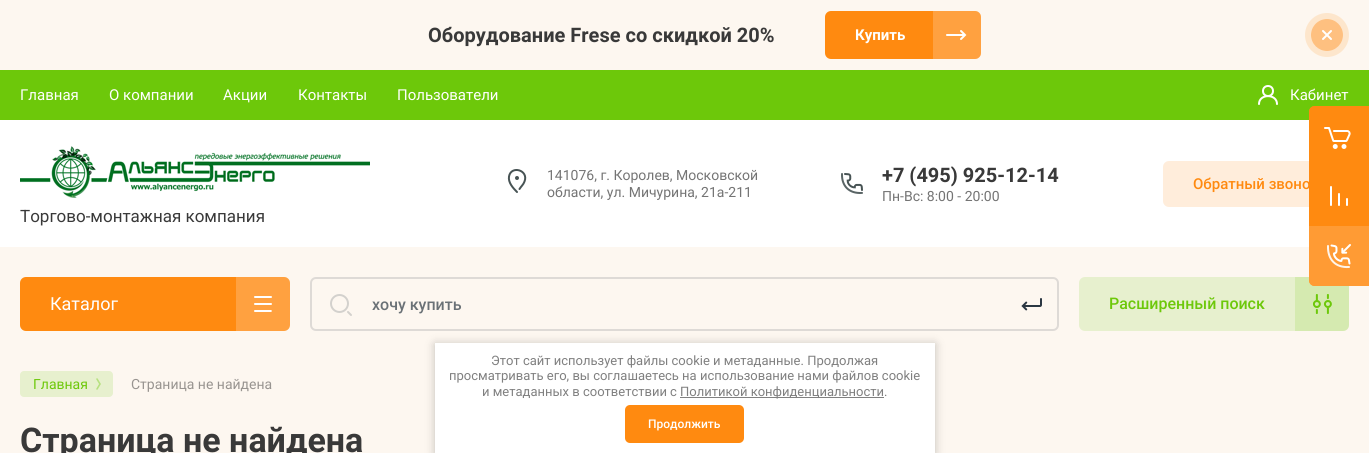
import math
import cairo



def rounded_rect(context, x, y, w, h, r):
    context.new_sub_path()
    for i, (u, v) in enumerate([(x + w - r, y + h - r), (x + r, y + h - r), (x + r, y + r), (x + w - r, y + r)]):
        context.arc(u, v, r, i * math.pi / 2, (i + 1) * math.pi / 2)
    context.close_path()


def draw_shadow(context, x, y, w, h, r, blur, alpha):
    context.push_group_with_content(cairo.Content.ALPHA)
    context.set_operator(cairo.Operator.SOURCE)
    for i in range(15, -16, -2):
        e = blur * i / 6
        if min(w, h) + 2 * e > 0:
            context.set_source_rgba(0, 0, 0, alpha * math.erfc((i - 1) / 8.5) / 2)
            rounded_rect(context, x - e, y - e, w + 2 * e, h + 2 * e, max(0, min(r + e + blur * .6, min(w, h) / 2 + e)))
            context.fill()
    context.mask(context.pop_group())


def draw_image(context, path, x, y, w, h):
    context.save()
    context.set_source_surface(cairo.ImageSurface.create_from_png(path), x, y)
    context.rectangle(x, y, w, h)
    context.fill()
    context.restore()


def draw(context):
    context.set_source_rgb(253 / 255, 247 / 255, 240 / 255)
    context.paint()
    context.set_source_rgb(1, 138 / 255, 16 / 255)
    rounded_rect(context, 825, 11, 156, 48, 6)
    context.fill()
    context.set_source_rgba(1, 1, 1, 0.2)
    context.new_path()
    context.move_to(933, 11)
    context.line_to(975, 11)
    context.curve_to(978.5, 11, 981, 13.5, 981, 17)
    context.line_to(981, 53)
    context.curve_to(981, 56.5, 978.5, 59, 975, 59)
    context.line_to(933, 59)
    context.close_path()
    context.fill()
    draw_image(context, "images/1.png", 946, 30, 21, 10)
    context.arc(1327, 35, 19, 0, 2 * math.pi)
    context.set_source_rgb(253 / 255, 230 / 255, 204 / 255)
    context.set_line_width(6)
    context.stroke()
    context.set_source_rgba(1, 138 / 255, 16 / 255, 0.5)
    context.arc(1327, 35, 16, 0, 2 * math.pi)
    context.fill()
    draw_image(context, "images/2.png", 1322, 30, 10, 10)
    context.set_source_rgb(109 / 255, 200 / 255, 10 / 255)
    context.rectangle(0, 70, 1369, 50)
    context.fill()
    context.arc(1268, 91, 5, 0, 2 * math.pi)
    context.set_source_rgb(1, 1, 1)
    context.set_line_width(2)
    context.stroke()
    context.new_path()
    context.move_to(1277, 104)
    context.curve_to(1277, 93.5, 1259, 93.5, 1259, 104)
    context.set_line_cap(cairo.LineCap.ROUND)
    context.stroke()
    context.rectangle(0, 120, 1309, 127)
    context.fill()
    context.new_path()
    context.move_to(517, 192)
    context.curve_to(513, 188, 508, 182.5, 509, 176.5)
    context.curve_to(511, 165, 529, 170, 524.5, 181.5)
    context.curve_to(523.5, 184.5, 521, 186.5, 519.5, 189)
    context.set_source_rgb(71 / 255, 83 / 255, 84 / 255)
    context.stroke()
    context.arc(517, 178, 2, 0, 2 * math.pi)
    context.fill()
    draw_image(context, "images/3.png", 841, 173, 22, 21)
    context.set_source_rgb(1, 237 / 255, 219 / 255)
    rounded_rect(context, 1163, 161, 186, 46, 6)
    context.fill()
    draw_image(context, "images/4.png", 20, 146, 350, 52)
    context.set_source_rgb(1, 138 / 255, 16 / 255)
    context.new_path()
    context.move_to(1315, 106)
    context.line_to(1369, 106)
    context.line_to(1369, 166)
    context.line_to(1309, 166)
    context.line_to(1309, 112)
    context.curve_to(1309, 108.5, 1311.5, 106, 1315, 106)
    context.close_path()
    context.fill()
    context.new_path()
    context.move_to(1315, 106)
    context.line_to(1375, 106)
    context.line_to(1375, 166)
    context.line_to(1315, 166)
    context.curve_to(1311.5, 166, 1309, 163.5, 1309, 160)
    context.line_to(1309, 112)
    context.curve_to(1309, 108.5, 1311.5, 106, 1315, 106)
    context.close_path()
    context.fill()
    draw_image(context, "images/5.png", 1324, 127, 27, 22)
    context.rectangle(1309, 166, 60, 60)
    context.fill()
    draw_image(context, "images/6.png", 1330, 186, 18, 20)
    context.set_source_rgb(231 / 255, 240 / 255, 206 / 255)
    rounded_rect(context, 1079, 277, 270, 54, 6)
    context.fill()
    context.set_source_rgba(109 / 255, 200 / 255, 10 / 255, 0.15)
    context.new_path()
    context.move_to(1295, 277)
    context.line_to(1343, 277)
    context.curve_to(1346.5, 277, 1349, 279.5, 1349, 283)
    context.line_to(1349, 325)
    context.curve_to(1349, 328.5, 1346.5, 331, 1343, 331)
    context.line_to(1295, 331)
    context.close_path()
    context.fill()
    context.set_source_rgb(1, 138 / 255, 16 / 255)
    context.new_path()
    context.move_to(1309, 226)
    context.line_to(1369, 226)
    context.line_to(1369, 286)
    context.line_to(1315, 286)
    context.curve_to(1311.5, 286, 1309, 283.5, 1309, 280)
    context.close_path()
    context.fill()
    context.set_source_rgba(1, 1, 1, 0.15)
    context.new_path()
    context.move_to(1309, 226)
    context.line_to(1369, 226)
    context.line_to(1369, 286)
    context.line_to(1315, 286)
    context.curve_to(1311.5, 286, 1309, 283.5, 1309, 280)
    context.close_path()
    context.fill()
    context.set_source_rgb(1, 138 / 255, 16 / 255)
    context.new_path()
    context.move_to(1315, 226)
    context.line_to(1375, 226)
    context.line_to(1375, 286)
    context.line_to(1315, 286)
    context.curve_to(1311.5, 286, 1309, 283.5, 1309, 280)
    context.line_to(1309, 232)
    context.curve_to(1309, 228.5, 1311.5, 226, 1315, 226)
    context.close_path()
    context.fill()
    context.set_source_rgba(1, 1, 1, 0.15)
    context.new_path()
    context.move_to(1315, 226)
    context.line_to(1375, 226)
    context.line_to(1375, 286)
    context.line_to(1315, 286)
    context.curve_to(1311.5, 286, 1309, 283.5, 1309, 280)
    context.line_to(1309, 232)
    context.curve_to(1309, 228.5, 1311.5, 226, 1315, 226)
    context.close_path()
    context.fill()
    draw_image(context, "images/7.png", 1327, 244, 24, 25)
    context.set_source_rgb(1, 138 / 255, 16 / 255)
    rounded_rect(context, 20, 277, 270, 54, 6)
    context.fill()
    context.set_source_rgba(1, 1, 1, 0.2)
    context.new_path()
    context.move_to(236, 277)
    context.line_to(284, 277)
    context.curve_to(287.5, 277, 290, 279.5, 290, 283)
    context.line_to(290, 331)
    context.line_to(236, 331)
    context.close_path()
    context.fill()
    draw_image(context, "images/8.png", 254, 296, 18, 16)
    rounded_rect(context, 311, 278, 747, 52, 5)
    context.set_source_rgb(222 / 255, 218 / 255, 214 / 255)
    context.set_line_cap(cairo.LineCap.BUTT)
    context.stroke()
    context.arc(339.5, 303.5, 8.5, 0, 2 * math.pi)
    context.set_source_rgb(211 / 255, 209 / 255, 205 / 255)
    context.stroke()
    context.new_path()
    context.move_to(348, 312)
    context.line_to(351, 315)
    context.set_line_cap(cairo.LineCap.ROUND)
    context.stroke()
    draw_image(context, "images/9.png", 1021, 298, 21, 13)
    draw_image(context, "images/10.png", 1313, 294, 19, 20)
    context.set_source_rgb(231 / 255, 240 / 255, 206 / 255)
    rounded_rect(context, 20, 371, 93, 26, 4)
    context.fill()
    draw_image(context, "images/11.png", 96, 378, 5, 12)
    context.set_source_rgb(0, 0, 0)
    draw_shadow(context, 435, 344, 500, 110, 0, 5, 0.23)
    context.set_source_rgb(1, 1, 1)
    context.rectangle(435, 343, 500, 110)
    context.fill()
    context.set_source_rgb(128 / 255, 128 / 255, 128 / 255)
    context.rectangle(680, 397, 204, 1)
    context.fill()
    context.set_source_rgb(1, 138 / 255, 16 / 255)
    rounded_rect(context, 625, 405, 119, 38, 5)
    context.fill()
    context.select_font_face("Roboto", cairo.FontSlant.NORMAL, cairo.FontWeight.BOLD)
    context.set_font_size(20)
    context.set_source_rgb(57 / 255, 57 / 255, 57 / 255)
    context.move_to(428, 42)
    context.show_text("Оборудование Frese со скидкой 20%")
    context.set_font_size(15)
    context.set_source_rgb(1, 1, 1)
    context.move_to(855, 40)
    context.show_text("Купить")
    context.select_font_face("Roboto")
    context.move_to(20, 100)
    context.show_text("Главная")
    context.move_to(109, 100)
    context.show_text("О компании")
    context.move_to(223, 100)
    context.show_text("Акции")
    context.move_to(298, 100)
    context.show_text("Контакты")
    context.move_to(397, 100)
    context.show_text("Пользователи")
    context.move_to(1290, 100)
    context.show_text("Кабинет")
    context.set_font_size(14)
    context.set_source_rgb(116 / 255, 116 / 255, 116 / 255)
    context.move_to(547, 180)
    context.show_text("141076, г. Королев, Московской")
    context.move_to(547, 197)
    context.show_text("области, ул. Мичурина, 21а-211")
    context.select_font_face("Roboto", cairo.FontSlant.NORMAL, cairo.FontWeight.BOLD)
    context.set_font_size(20)
    context.set_source_rgb(57 / 255, 57 / 255, 57 / 255)
    context.move_to(882, 182)
    context.show_text("+7 (495) 925-12-14")
    context.select_font_face("Roboto")
    context.set_font_size(14)
    context.set_source_rgb(116 / 255, 116 / 255, 116 / 255)
    context.move_to(882, 201)
    context.show_text("Пн-Вс: 8:00 - 20:00")
    context.select_font_face("Roboto Medium")
    context.set_font_size(15)
    context.set_source_rgb(1, 138 / 255, 16 / 255)
    context.move_to(1193, 189)
    context.show_text("Обратный звоно")
    context.select_font_face("Roboto")
    context.set_font_size(17)
    context.set_source_rgb(57 / 255, 57 / 255, 57 / 255)
    context.move_to(20, 222)
    context.show_text("Торгово-монтажная компания")
    context.set_font_size(18)
    context.set_source_rgb(1, 1, 1)
    context.move_to(50, 310)
    context.show_text("Каталог")
    context.select_font_face("Roboto Medium")
    context.set_font_size(16)
    context.set_source_rgb(106 / 255, 113 / 255, 118 / 255)
    context.move_to(372, 310)
    context.show_text("хочу купить")
    context.set_source_rgb(109 / 255, 200 / 255, 10 / 255)
    context.move_to(1109, 309)
    context.show_text("Расширенный поиск")
    context.select_font_face("Roboto")
    context.set_font_size(14)
    context.move_to(33, 389)
    context.show_text("Главная")
    context.set_source_rgb(152 / 255, 148 / 255, 144 / 255)
    context.move_to(131, 389)
    context.show_text("Страница не найдена")
    context.select_font_face("Roboto", cairo.FontSlant.NORMAL, cairo.FontWeight.BOLD)
    context.set_font_size(34)
    context.set_source_rgb(57 / 255, 57 / 255, 57 / 255)
    context.move_to(20, 452)
    context.show_text("Страница не найдена")
    context.select_font_face("Roboto")
    context.set_font_size(13)
    context.set_source_rgb(128 / 255, 128 / 255, 128 / 255)
    context.move_to(491, 365)
    context.show_text("Этот сайт использует файлы cookie и метаданные. Продолжая")
    context.move_to(449, 380)
    context.show_text("просматривать его, вы соглашаетесь на использование нами файлов cookie")
    context.move_to(482, 396)
    context.show_text("и метаданных в соответствии с")
    context.move_to(680, 396)
    context.show_text("Политикой конфиденциальности.")
    context.select_font_face("Roboto Medium")
    context.set_font_size(12)
    context.set_source_rgb(1, 1, 1)
    context.move_to(648, 428)
    context.show_text("Продолжить")


surface = cairo.ImageSurface(cairo.Format.RGB24, 1369, 453)
context = cairo.Context(surface)
options = cairo.FontOptions()
options.set_hint_metrics(cairo.HintMetrics.OFF)
options.set_hint_style(cairo.HintStyle.NONE)
context.set_font_options(options)
context.set_miter_limit(4)
draw(context)
surface.write_to_png("out.png")
